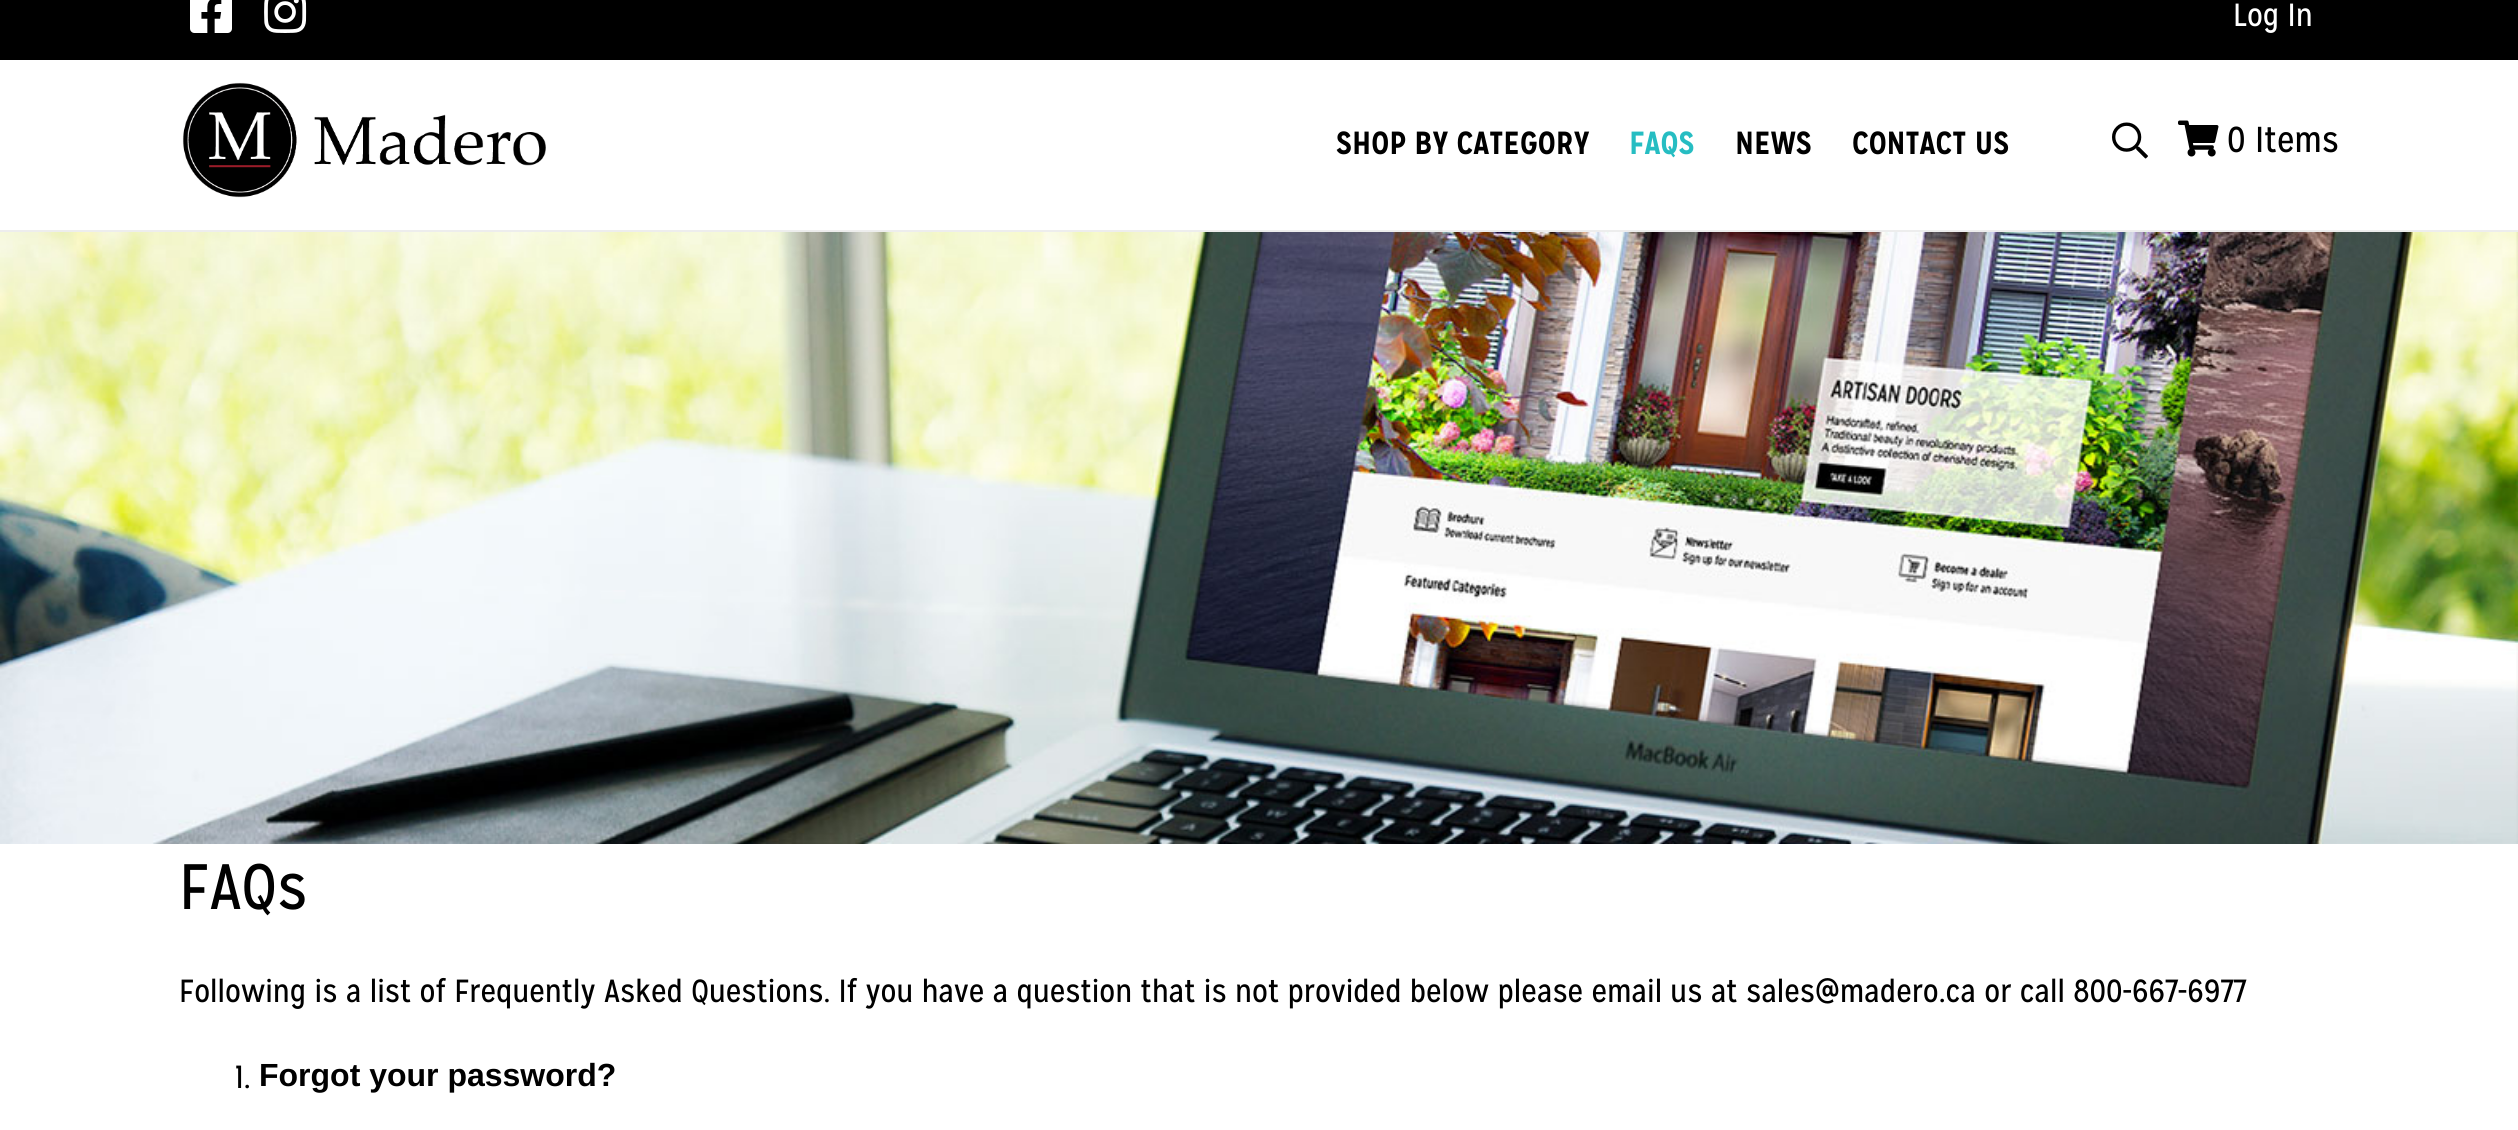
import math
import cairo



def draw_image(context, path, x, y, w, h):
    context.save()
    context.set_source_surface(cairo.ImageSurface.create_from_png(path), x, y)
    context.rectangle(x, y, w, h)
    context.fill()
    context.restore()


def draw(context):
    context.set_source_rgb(1, 1, 1)
    context.paint()
    context.set_source_rgb(0, 0, 0)
    context.rectangle(0, 0, 2518, 60)
    context.fill()
    draw_image(context, "images/1.png", 190, 0, 42, 33)
    draw_image(context, "images/2.png", 264, 0, 43, 33)
    context.set_source_rgb(237 / 255, 237 / 255, 237 / 255)
    context.rectangle(0, 230, 2518, 2)
    context.fill()
    draw_image(context, "images/3.png", 182, 82, 364, 116)
    draw_image(context, "images/4.png", 2112, 122, 36, 37)
    draw_image(context, "images/5.png", 2178, 120, 41, 37)
    draw_image(context, "images/6.png", 0, 232, 2518, 612)
    context.select_font_face("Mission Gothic")
    context.set_font_size(32)
    context.set_source_rgb(1, 1, 1)
    context.move_to(2233, 26)
    context.show_text("Log In")
    context.select_font_face("Mission Gothic", cairo.FontSlant.NORMAL, cairo.FontWeight.BOLD)
    context.set_source_rgb(0, 0, 0)
    context.move_to(1336, 154)
    context.show_text("SHOP BY CATEGORY")
    context.set_source_rgb(38 / 255, 189 / 255, 194 / 255)
    context.move_to(1629, 154)
    context.show_text("FAQS")
    context.set_source_rgb(0, 0, 0)
    context.move_to(1735, 154)
    context.show_text("NEWS")
    context.move_to(1852, 154)
    context.show_text("CONTACT US")
    context.select_font_face("Mission Gothic")
    context.set_font_size(36)
    context.move_to(2227, 152)
    context.show_text("0 Items")
    context.set_font_size(64)
    context.move_to(179, 909)
    context.show_text("FAQs")
    context.set_font_size(32)
    context.move_to(179, 1002)
    context.show_text("Following is a list of Frequently Asked Questions. If you have a question that is not provided below please email us at sales@madero.ca or call 800-667-6977")
    context.move_to(235, 1088)
    context.show_text("1.")
    context.select_font_face("Liberation Sans", cairo.FontSlant.NORMAL, cairo.FontWeight.BOLD)
    context.move_to(259, 1086)
    context.show_text("Forgot your password?")


surface = cairo.ImageSurface(cairo.Format.RGB24, 2518, 1130)
context = cairo.Context(surface)
options = cairo.FontOptions()
options.set_hint_metrics(cairo.HintMetrics.OFF)
options.set_hint_style(cairo.HintStyle.NONE)
context.set_font_options(options)
context.set_miter_limit(4)
draw(context)
surface.write_to_png("out.png")
